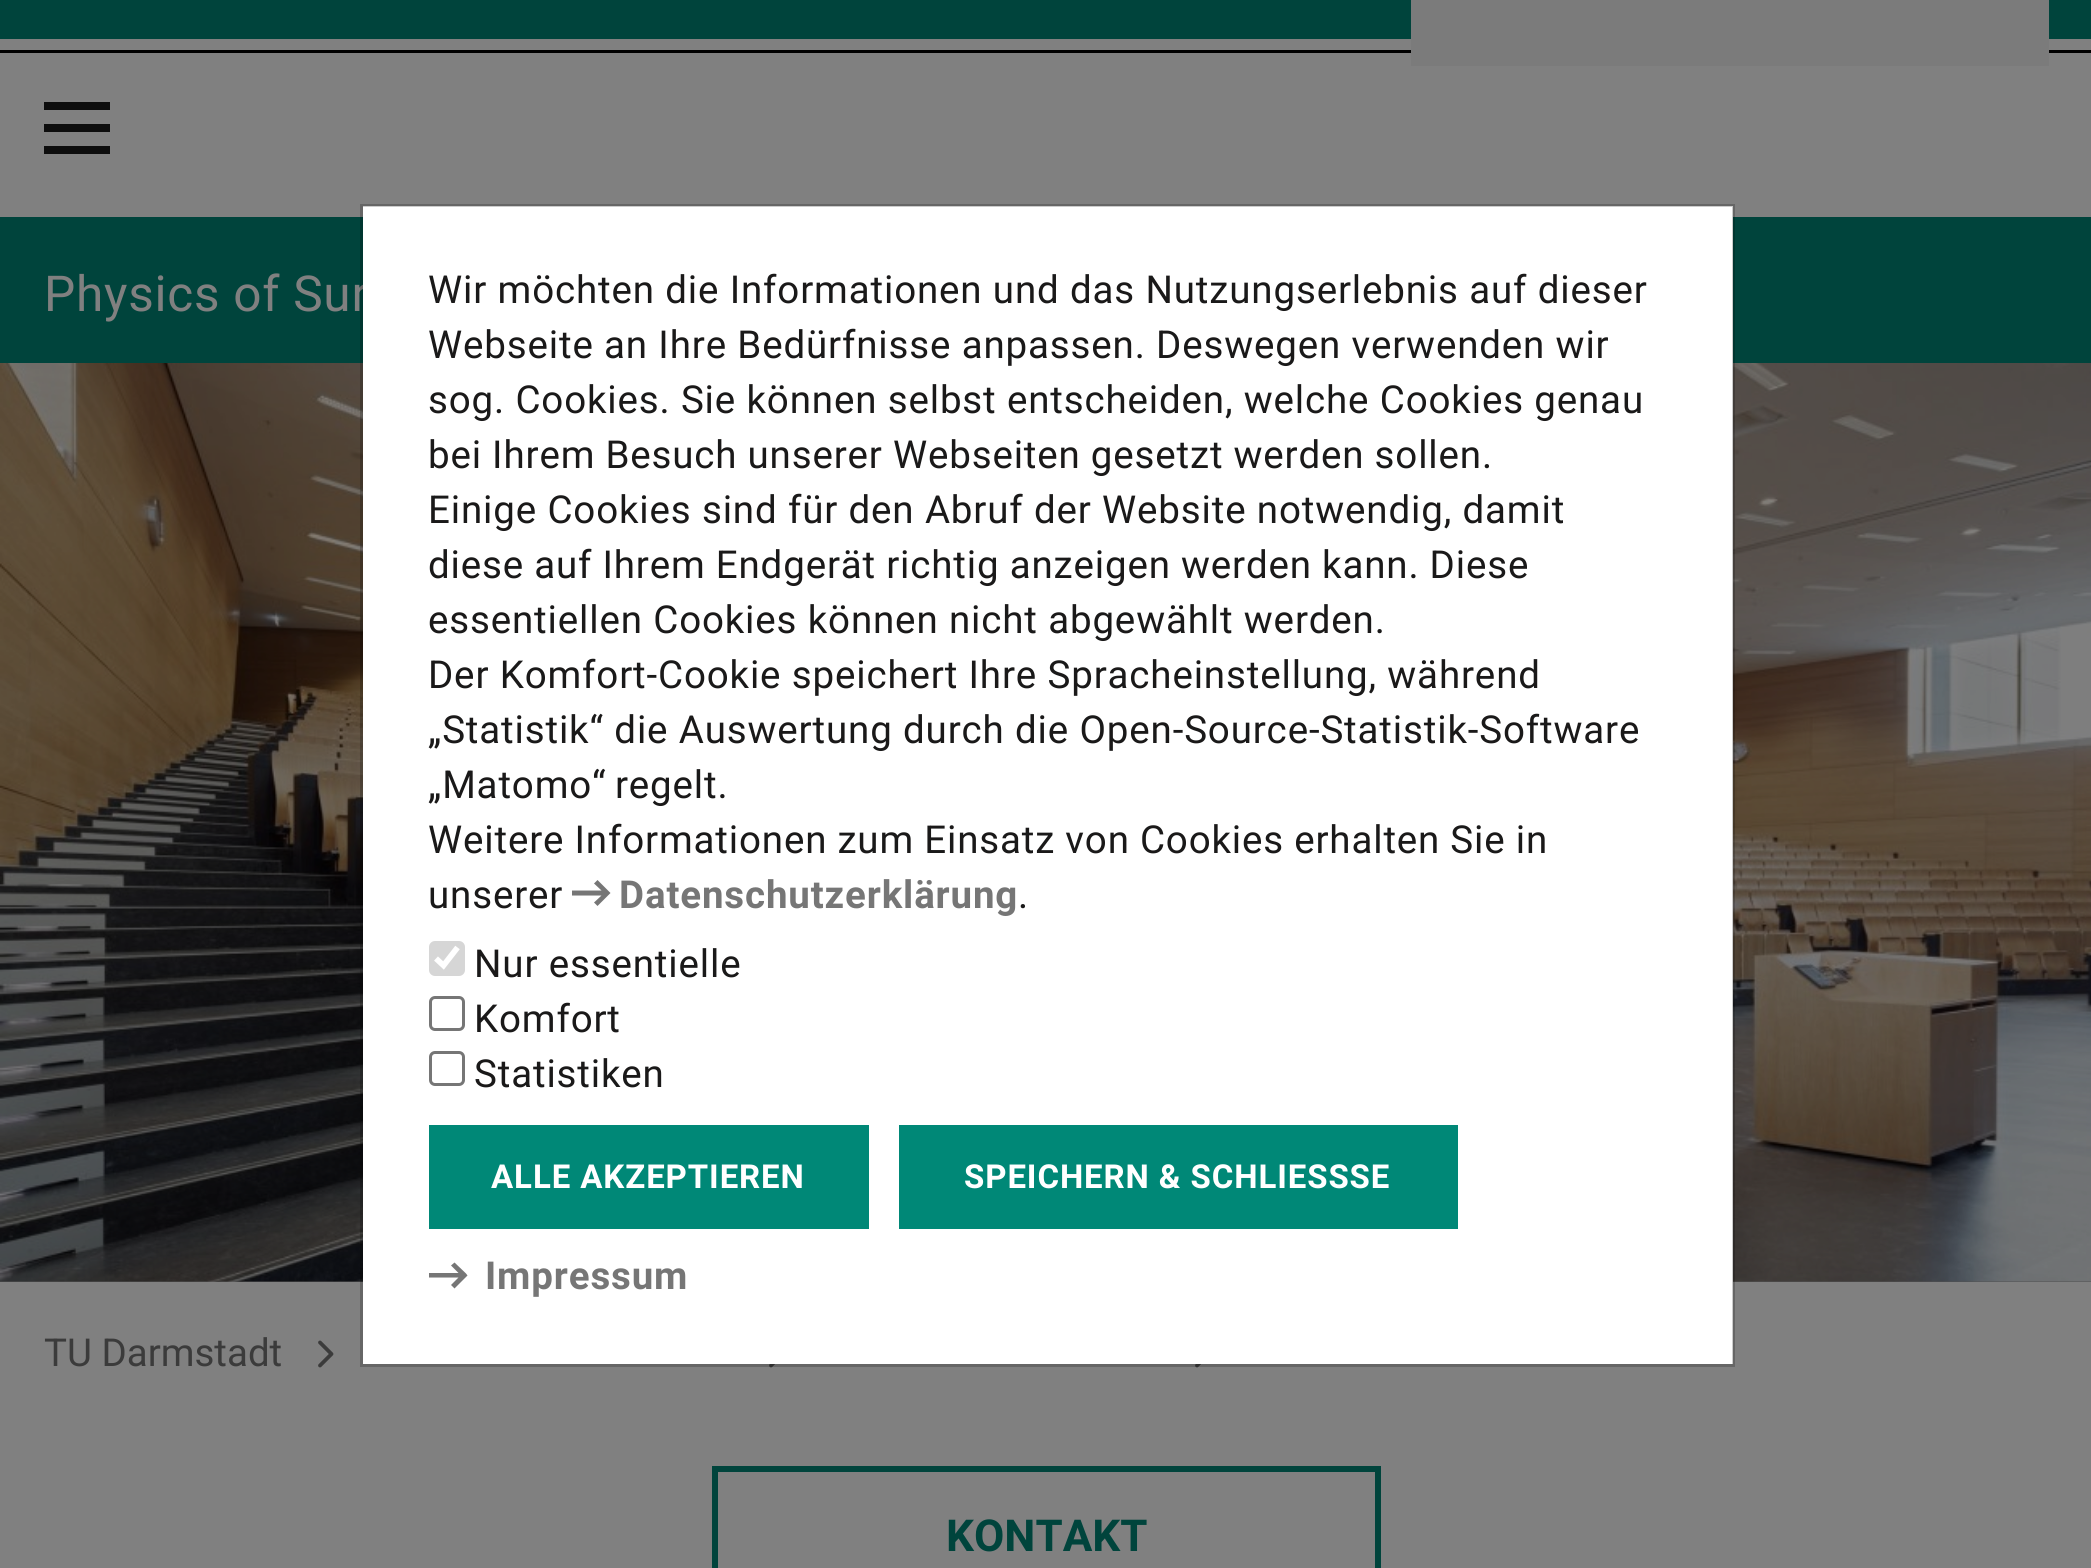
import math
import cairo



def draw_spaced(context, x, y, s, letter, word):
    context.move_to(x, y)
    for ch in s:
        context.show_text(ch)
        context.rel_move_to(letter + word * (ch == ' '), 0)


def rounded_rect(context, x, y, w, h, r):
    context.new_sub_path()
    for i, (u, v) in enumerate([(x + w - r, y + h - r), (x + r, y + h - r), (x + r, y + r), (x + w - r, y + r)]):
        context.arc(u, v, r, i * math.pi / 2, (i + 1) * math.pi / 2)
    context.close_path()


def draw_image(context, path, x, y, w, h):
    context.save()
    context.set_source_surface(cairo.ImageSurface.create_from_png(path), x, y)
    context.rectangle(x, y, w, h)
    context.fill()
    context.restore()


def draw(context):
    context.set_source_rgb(128 / 255, 128 / 255, 128 / 255)
    context.paint()
    context.set_source_rgb(0, 68 / 255, 60 / 255)
    context.rectangle(0, 0, 2091, 39)
    context.fill()
    context.set_source_rgb(0, 0, 0)
    context.rectangle(0, 50, 2091, 3)
    context.fill()
    context.set_source_rgb(123 / 255, 123 / 255, 123 / 255)
    context.rectangle(1411, 0, 638, 66)
    context.fill()
    context.set_source_rgb(13 / 255, 13 / 255, 13 / 255)
    context.rectangle(44, 124, 66, 8)
    context.fill()
    context.rectangle(44, 102, 66, 8)
    context.fill()
    context.rectangle(44, 146, 66, 8)
    context.fill()
    context.set_source_rgb(0, 68 / 255, 60 / 255)
    context.rectangle(0, 217, 2091, 146)
    context.fill()
    context.set_source_rgb(83 / 255, 83 / 255, 83 / 255)
    context.rectangle(0, 1281, 2091, 1)
    context.fill()
    draw_image(context, "images/1.png", 0, 363, 2091, 919)
    context.new_path()
    context.move_to(320, 1365.5)
    context.line_to(331.5, 1354)
    context.line_to(320, 1342.5)
    context.set_source_rgb(59 / 255, 59 / 255, 59 / 255)
    context.set_line_width(3.8)
    context.set_line_cap(cairo.LineCap.ROUND)
    context.set_line_join(cairo.LineJoin.ROUND)
    context.stroke()
    context.new_path()
    context.move_to(771, 1365.5)
    context.line_to(782.5, 1354)
    context.line_to(771, 1342.5)
    context.stroke()
    context.new_path()
    context.move_to(1197, 1365.5)
    context.line_to(1208.5, 1354)
    context.line_to(1197, 1342.5)
    context.stroke()
    context.rectangle(715, 1469, 663, 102)
    context.set_source_rgb(0, 68 / 255, 60 / 255)
    context.set_line_width(6)
    context.set_line_cap(cairo.LineCap.BUTT)
    context.set_line_join(cairo.LineJoin.MITER)
    context.stroke()
    context.select_font_face("Roboto")
    context.set_font_size(49.5)
    context.set_source_rgb(128 / 255, 128 / 255, 128 / 255)
    draw_spaced(context, 44, 311, "Physics of Sur", 0.75, 0)
    context.set_font_size(38.5)
    context.set_source_rgb(59 / 255, 59 / 255, 59 / 255)
    context.move_to(44, 1366)
    context.show_text("TU Darmstadt")
    context.select_font_face("Roboto", cairo.FontSlant.NORMAL, cairo.FontWeight.BOLD)
    context.set_font_size(44)
    context.set_source_rgb(0, 68 / 255, 60 / 255)
    context.move_to(946, 1551)
    context.show_text("KONTAKT")
    context.set_source_rgb(1, 1, 1)
    context.rectangle(363, 206, 1370, 1158)
    context.fill()
    context.rectangle(361.5, 205.5, 1372, 1160)
    context.set_source_rgba(0, 0, 0, 0.2)
    context.set_line_width(3)
    context.stroke()
    context.select_font_face("Roboto")
    context.set_font_size(38.5)
    context.set_source_rgb(26 / 255, 25 / 255, 25 / 255)
    draw_spaced(context, 428, 303, "Wir möchten die Informationen und das Nutzungserlebnis auf dieser", 0.85, 0)
    draw_spaced(context, 428, 358, "Webseite an Ihre Bedürfnisse anpassen. Deswegen verwenden wir", 0.85, 0)
    draw_spaced(context, 428, 413, "sog. Cookies. Sie können selbst entscheiden, welche Cookies genau", 0.85, 0)
    draw_spaced(context, 428, 468, "bei Ihrem Besuch unserer Webseiten gesetzt werden sollen.", 0.85, -0.25)
    draw_spaced(context, 428, 523, "Einige Cookies sind für den Abruf der Website notwendig, damit", 0.85, 0)
    draw_spaced(context, 428, 578, "diese auf Ihrem Endgerät richtig anzeigen werden kann. Diese", 0.85, -0.25)
    draw_spaced(context, 428, 633, "essentiellen Cookies können nicht abgewählt werden.", 0.85, 0)
    draw_spaced(context, 428, 688, "Der Komfort-Cookie speichert Ihre Spracheinstellung, während", 0.85, 0)
    draw_spaced(context, 428, 743, "„Statistik“ die Auswertung durch die Open-Source-Statistik-Software", 0.85, 0)
    draw_spaced(context, 428, 798, "„Matomo“ regelt.", 0.85, -2)
    draw_spaced(context, 428, 853, "Weitere Informationen zum Einsatz von Cookies erhalten Sie in", 0.85, -0.25)
    draw_spaced(context, 428, 908, "unserer", 0.85, 0)
    context.set_source_rgb(118 / 255, 118 / 255, 118 / 255)
    context.new_path()
    context.move_to(609, 891.5)
    context.line_to(610.5, 893)
    context.line_to(609, 891.5)
    context.line_to(610.5, 893)
    context.line_to(597.5, 906)
    context.line_to(594, 902.5)
    context.line_to(601.5, 895.5)
    context.line_to(572, 895.5)
    context.line_to(572, 890.5)
    context.line_to(601.5, 890.5)
    context.line_to(594, 883.5)
    context.line_to(597.5, 880)
    context.close_path()
    context.fill()
    context.select_font_face("Roboto", cairo.FontSlant.NORMAL, cairo.FontWeight.BOLD)
    draw_spaced(context, 619, 908, "Datenschutzerklärung", 0.85, 0)
    context.select_font_face("Roboto")
    context.set_source_rgb(26 / 255, 25 / 255, 25 / 255)
    draw_spaced(context, 1018, 908, ".", 0.85, 0)
    context.set_source_rgb(214 / 255, 214 / 255, 214 / 255)
    rounded_rect(context, 429, 941, 36, 35, 6)
    context.fill()
    context.new_path()
    context.move_to(436, 958.5)
    context.line_to(443.5, 965.5)
    context.line_to(457.5, 947.5)
    context.set_source_rgb(1, 1, 1)
    context.set_line_width(5.7)
    context.stroke()
    context.set_source_rgb(26 / 255, 25 / 255, 25 / 255)
    draw_spaced(context, 474, 977, "Nur essentielle", 0.85, 0)
    rounded_rect(context, 430.5, 997.5, 33, 32, 4.5)
    context.set_source_rgb(118 / 255, 118 / 255, 118 / 255)
    context.set_line_width(3)
    context.stroke()
    context.set_source_rgb(26 / 255, 25 / 255, 25 / 255)
    draw_spaced(context, 474, 1032, "Komfort", 0.85, 0)
    rounded_rect(context, 430.5, 1052.5, 33, 32, 4.5)
    context.set_source_rgb(118 / 255, 118 / 255, 118 / 255)
    context.stroke()
    context.set_source_rgb(26 / 255, 25 / 255, 25 / 255)
    draw_spaced(context, 474, 1087, "Statistiken", 0.85, 0)
    context.set_source_rgb(0, 136 / 255, 119 / 255)
    context.rectangle(429, 1125, 440, 104)
    context.fill()
    context.select_font_face("Roboto", cairo.FontSlant.NORMAL, cairo.FontWeight.BOLD)
    context.set_font_size(33)
    context.set_source_rgb(1, 1, 1)
    draw_spaced(context, 491, 1188, "ALLE AKZEPTIEREN", 0.9, 0)
    context.set_source_rgb(0, 136 / 255, 119 / 255)
    context.rectangle(899, 1125, 559, 104)
    context.fill()
    context.set_source_rgb(1, 1, 1)
    draw_spaced(context, 964, 1188, "SPEICHERN & SCHLIESSSE", 0.9, 0)
    context.set_source_rgb(118 / 255, 118 / 255, 118 / 255)
    context.new_path()
    context.move_to(466, 1273.5)
    context.line_to(467.5, 1275.5)
    context.line_to(466, 1273.5)
    context.line_to(467.5, 1275.5)
    context.line_to(454.5, 1288.5)
    context.line_to(451, 1285)
    context.line_to(458.5, 1277.5)
    context.line_to(429, 1277.5)
    context.line_to(429, 1273)
    context.line_to(458.5, 1273)
    context.line_to(451, 1265.5)
    context.line_to(454.5, 1262.5)
    context.close_path()
    context.fill()
    context.set_font_size(38.5)
    draw_spaced(context, 485, 1289, "Impressum", 0.85, 0)


surface = cairo.ImageSurface(cairo.Format.RGB24, 2091, 1568)
context = cairo.Context(surface)
options = cairo.FontOptions()
options.set_hint_metrics(cairo.HintMetrics.OFF)
options.set_hint_style(cairo.HintStyle.NONE)
context.set_font_options(options)
context.set_miter_limit(4)
draw(context)
surface.write_to_png("out.png")
